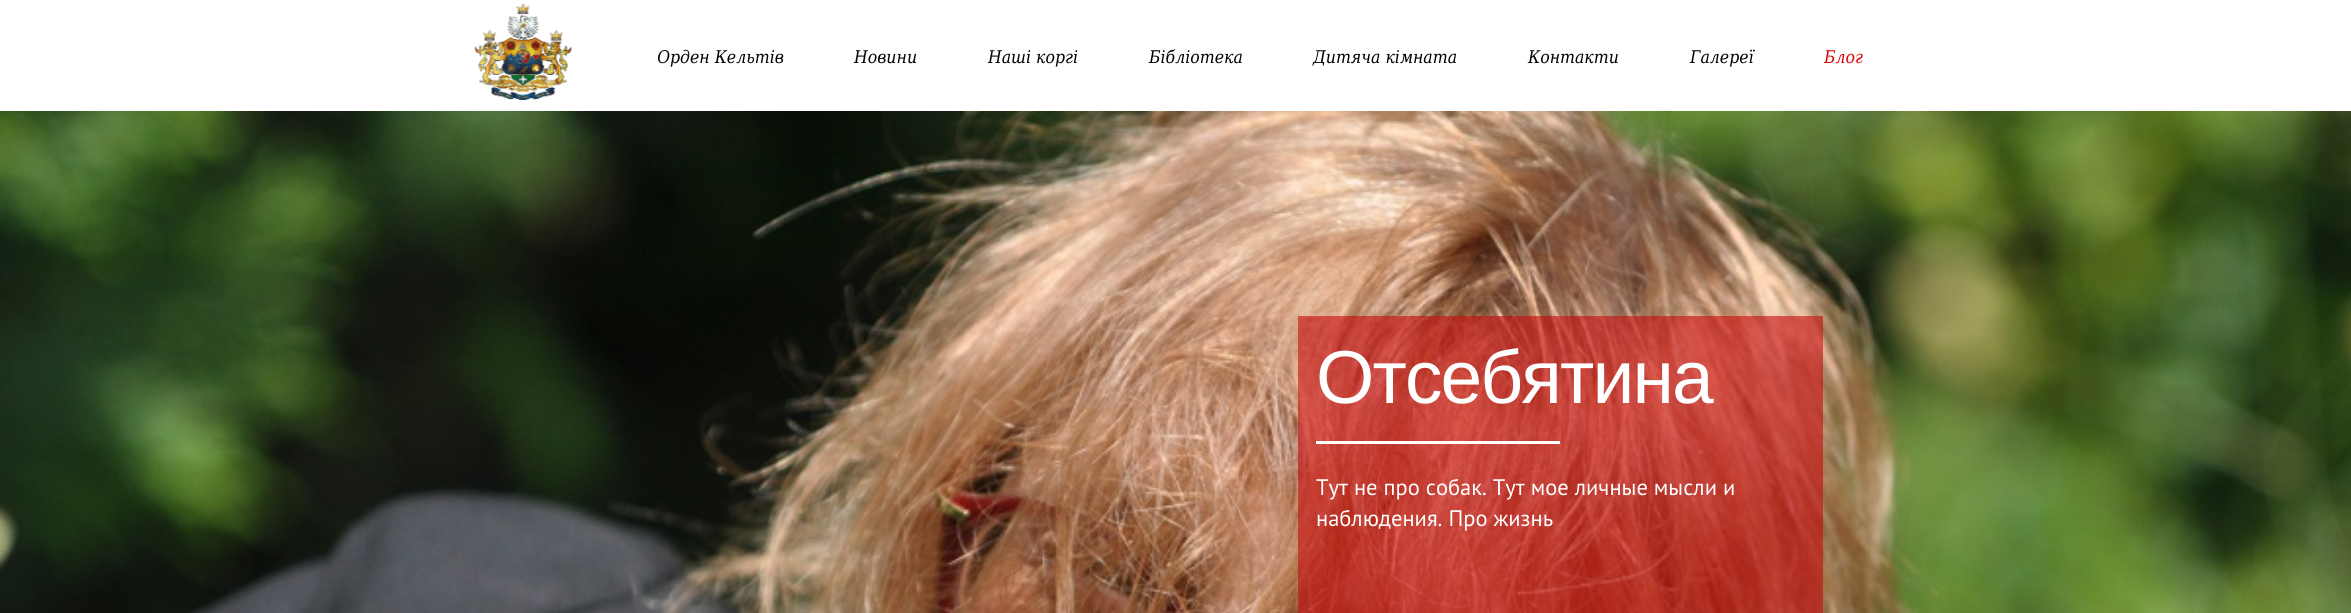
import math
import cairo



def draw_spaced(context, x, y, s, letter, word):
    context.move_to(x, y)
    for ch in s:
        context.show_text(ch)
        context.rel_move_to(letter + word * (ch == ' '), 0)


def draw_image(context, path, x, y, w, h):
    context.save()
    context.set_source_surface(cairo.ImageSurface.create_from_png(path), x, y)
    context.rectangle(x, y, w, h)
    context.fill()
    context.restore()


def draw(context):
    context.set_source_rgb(1, 1, 1)
    context.paint()
    draw_image(context, "images/1.png", 474, 3, 98, 97)
    draw_image(context, "images/2.png", 0, 111, 2351, 502)
    context.set_source_rgba(200 / 255, 13 / 255, 16 / 255, 0.6)
    context.rectangle(1298, 316, 525, 297)
    context.fill()
    context.set_source_rgb(1, 1, 1)
    context.rectangle(1316, 441, 244, 3)
    context.fill()
    context.select_font_face("DejaVu Serif", cairo.FontSlant.ITALIC)
    context.set_font_size(17.5)
    context.set_source_rgb(0, 0, 0)
    context.move_to(657, 63)
    context.show_text("Орден Кельтів")
    context.move_to(854, 63)
    context.show_text("Новини")
    context.move_to(988, 63)
    context.show_text("Наші коргі")
    context.move_to(1149, 63)
    context.show_text("Бібліотека")
    context.move_to(1313, 63)
    context.show_text("Дитяча кімната")
    context.move_to(1528, 63)
    context.show_text("Контакти")
    context.move_to(1690, 63)
    context.show_text("Галереї")
    context.set_source_rgb(214 / 255, 4 / 255, 4 / 255)
    context.move_to(1824, 63)
    context.show_text("Блог")
    context.select_font_face("Liberation Sans")
    context.set_font_size(75)
    context.set_source_rgb(1, 1, 1)
    draw_spaced(context, 1316, 403, "Отсебятина", -1.9, 0)
    context.select_font_face("PT Sans")
    context.set_font_size(22.5)
    context.move_to(1316, 495)
    context.show_text("Тут не про собак. Тут мое личные мысли и")
    context.move_to(1316, 526)
    context.show_text("наблюдения. Про жизнь")


surface = cairo.ImageSurface(cairo.Format.RGB24, 2351, 613)
context = cairo.Context(surface)
options = cairo.FontOptions()
options.set_hint_metrics(cairo.HintMetrics.OFF)
options.set_hint_style(cairo.HintStyle.NONE)
context.set_font_options(options)
context.set_miter_limit(4)
draw(context)
surface.write_to_png("out.png")
